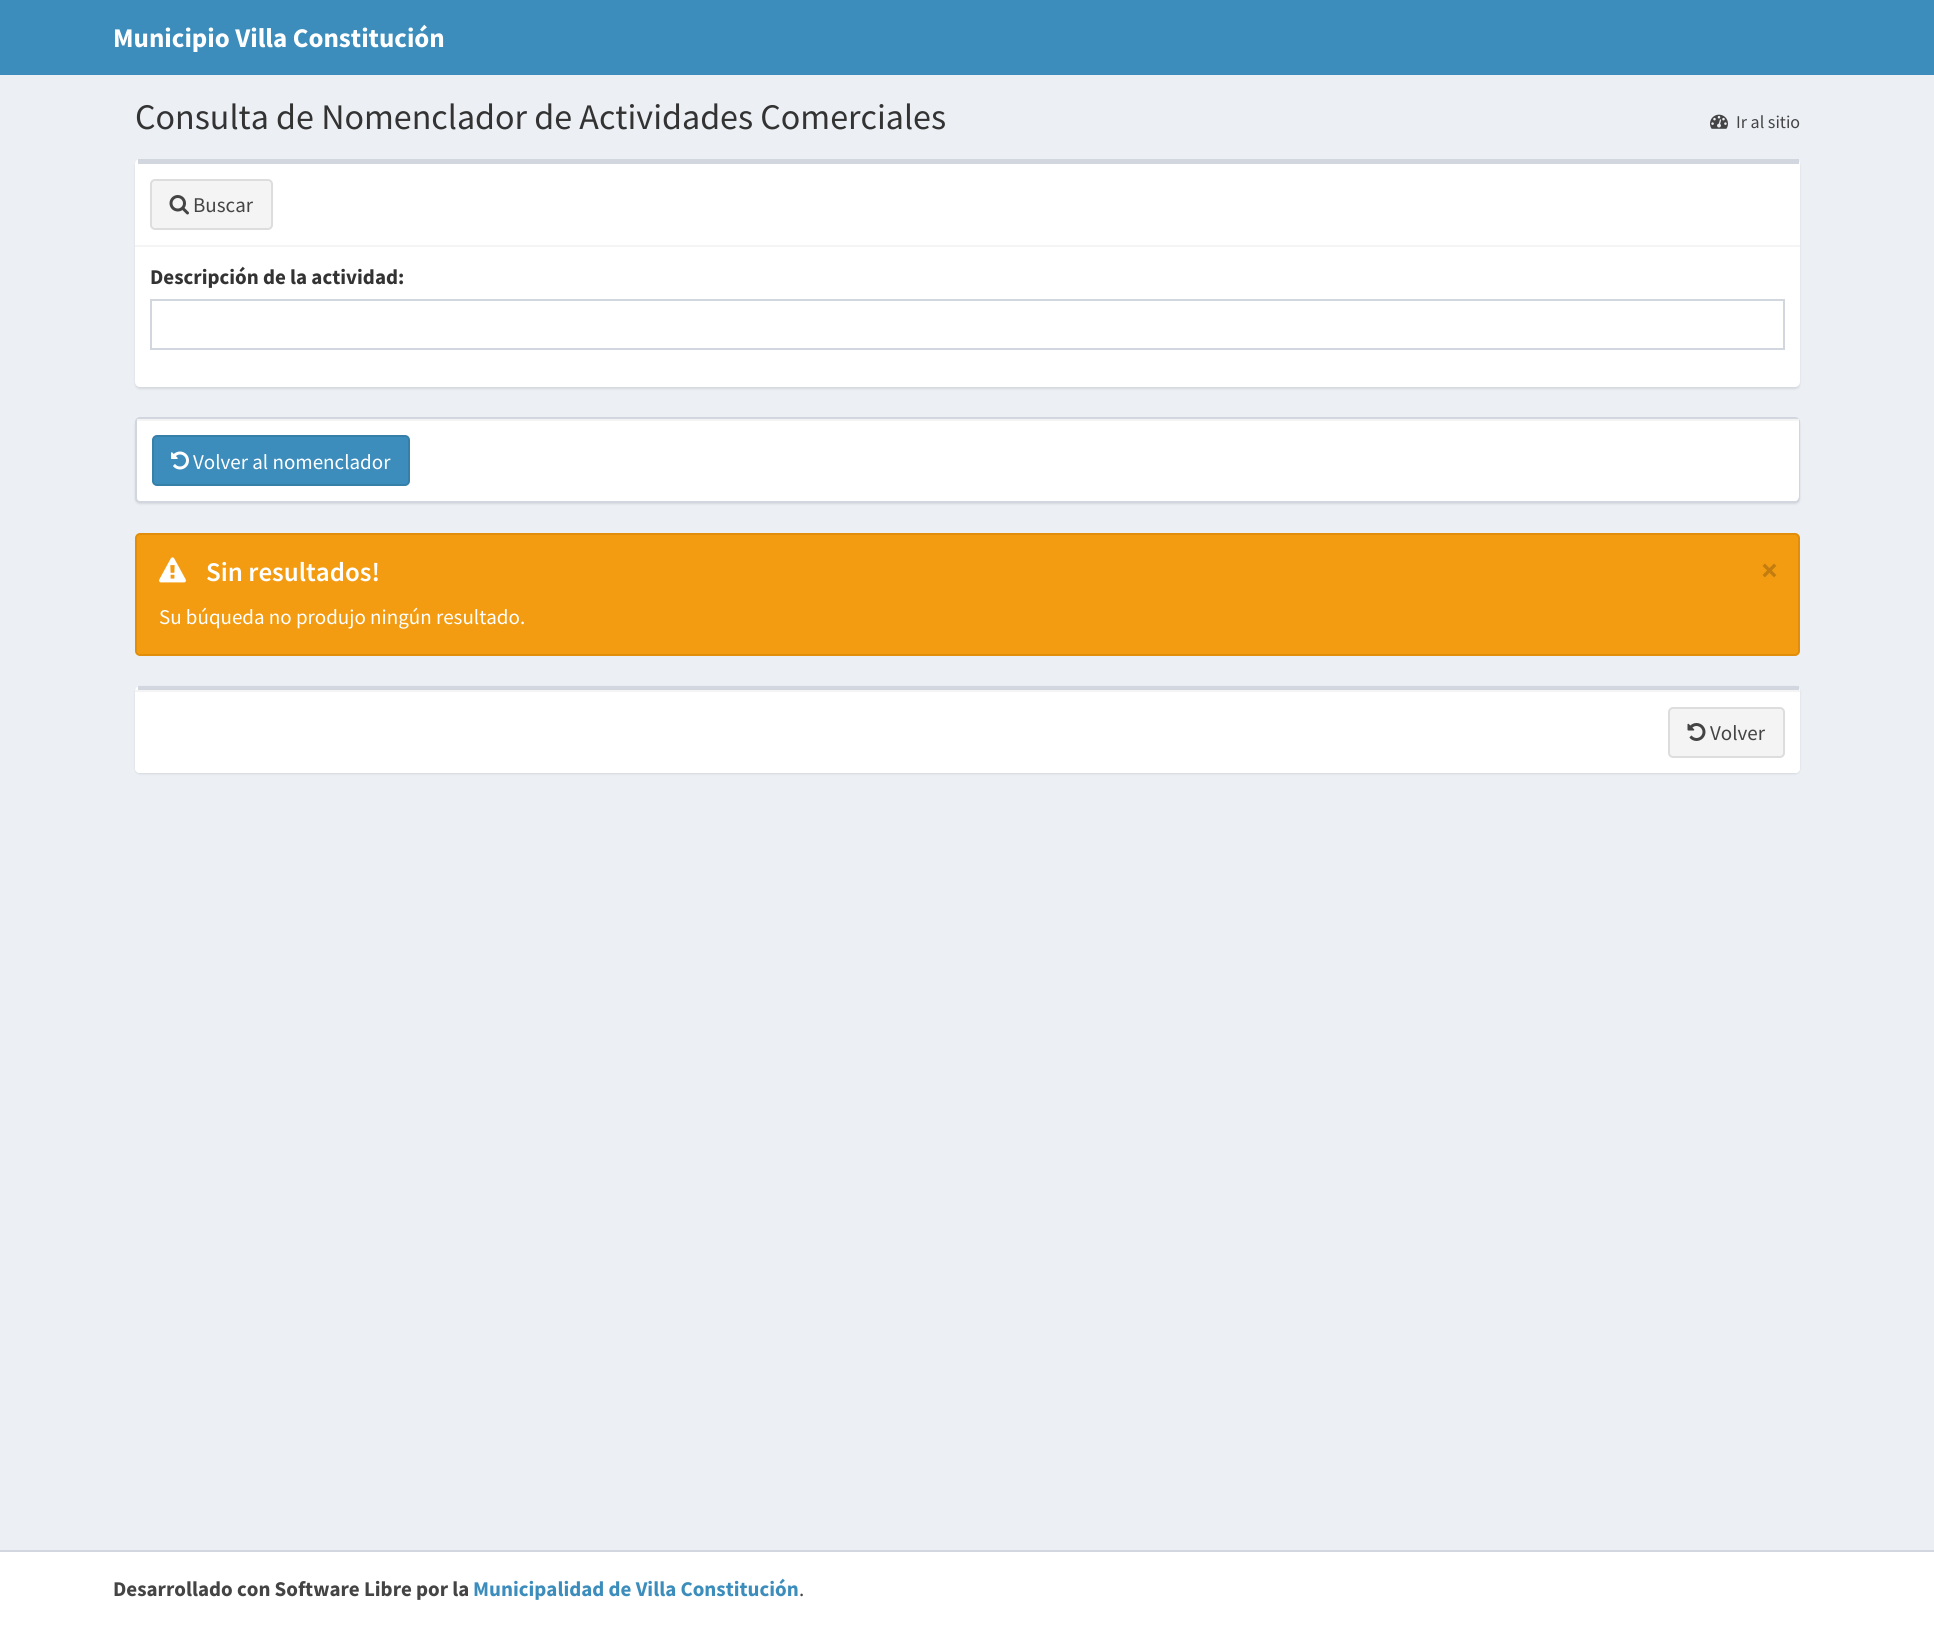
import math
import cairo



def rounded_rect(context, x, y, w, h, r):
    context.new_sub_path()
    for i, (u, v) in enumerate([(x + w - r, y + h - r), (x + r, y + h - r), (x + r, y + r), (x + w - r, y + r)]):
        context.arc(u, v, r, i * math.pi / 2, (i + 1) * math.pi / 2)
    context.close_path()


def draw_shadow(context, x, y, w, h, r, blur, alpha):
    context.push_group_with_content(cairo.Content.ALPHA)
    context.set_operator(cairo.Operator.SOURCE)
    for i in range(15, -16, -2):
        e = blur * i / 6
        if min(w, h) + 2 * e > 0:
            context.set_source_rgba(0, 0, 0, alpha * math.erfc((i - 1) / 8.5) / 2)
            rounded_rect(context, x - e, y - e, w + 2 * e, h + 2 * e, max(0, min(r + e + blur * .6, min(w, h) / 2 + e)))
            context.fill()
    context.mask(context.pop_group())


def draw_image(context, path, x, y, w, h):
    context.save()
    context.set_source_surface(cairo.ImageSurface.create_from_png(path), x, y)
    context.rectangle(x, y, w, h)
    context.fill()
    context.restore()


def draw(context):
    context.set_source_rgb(236 / 255, 240 / 255, 245 / 255)
    context.paint()
    context.set_source_rgb(60 / 255, 141 / 255, 188 / 255)
    context.rectangle(0, 0, 1934, 75)
    context.fill()
    draw_image(context, "images/1.png", 1710, 114, 18, 15)
    context.set_source_rgb(0, 0, 0)
    draw_shadow(context, 135, 161, 1665, 228, 5, 1, 0.1)
    context.set_source_rgb(1, 1, 1)
    rounded_rect(context, 135, 159, 1665, 228, 5)
    context.fill()
    context.set_source_rgb(210 / 255, 214 / 255, 222 / 255)
    context.rectangle(138, 159, 1661, 5)
    context.fill()
    context.set_source_rgb(244 / 255, 244 / 255, 244 / 255)
    context.rectangle(135, 245, 1665, 2)
    context.fill()
    rounded_rect(context, 151, 180, 121, 49, 4)
    context.fill_preserve()
    context.set_source_rgb(221 / 255, 221 / 255, 221 / 255)
    context.stroke()
    draw_image(context, "images/2.png", 169, 195, 20, 20)
    context.rectangle(151, 300, 1633, 49)
    context.set_source_rgb(210 / 255, 214 / 255, 222 / 255)
    context.stroke()
    context.set_source_rgb(0, 0, 0)
    draw_shadow(context, 135, 419, 1665, 85, 5, 1, 0.1)
    context.set_source_rgb(1, 1, 1)
    rounded_rect(context, 136, 418, 1663, 84, 4)
    context.fill_preserve()
    context.set_source_rgb(210 / 255, 214 / 255, 222 / 255)
    context.stroke()
    context.set_source_rgb(1, 1, 1)
    context.new_path()
    context.move_to(137, 419)
    context.line_to(1799, 419)
    context.line_to(1799, 496)
    context.curve_to(1799, 499, 1797, 501, 1794, 501)
    context.line_to(142, 501)
    context.curve_to(139, 501, 137, 499, 137, 496)
    context.close_path()
    context.fill()
    context.set_source_rgb(244 / 255, 244 / 255, 244 / 255)
    context.rectangle(137, 419, 1662, 2)
    context.fill()
    context.set_source_rgb(60 / 255, 141 / 255, 188 / 255)
    rounded_rect(context, 153, 436, 256, 49, 4)
    context.fill_preserve()
    context.set_source_rgb(54 / 255, 127 / 255, 169 / 255)
    context.stroke()
    draw_image(context, "images/3.png", 171, 451, 18, 19)
    context.set_source_rgb(243 / 255, 156 / 255, 18 / 255)
    rounded_rect(context, 136, 534, 1663, 121, 4)
    context.fill_preserve()
    context.set_source_rgb(224 / 255, 142 / 255, 11 / 255)
    context.stroke()
    draw_image(context, "images/4.png", 159, 557, 27, 26)
    context.set_source_rgb(0, 0, 0)
    draw_shadow(context, 135, 687, 1665, 87, 5, 1, 0.1)
    context.set_source_rgb(1, 1, 1)
    rounded_rect(context, 135, 686, 1665, 87, 5)
    context.fill()
    context.set_source_rgb(210 / 255, 214 / 255, 222 / 255)
    context.rectangle(138, 686, 1661, 4)
    context.fill()
    context.set_source_rgb(1, 1, 1)
    context.new_path()
    context.move_to(135, 690)
    context.line_to(1800, 690)
    context.line_to(1800, 768)
    context.curve_to(1800, 771, 1798, 773, 1795, 773)
    context.line_to(140, 773)
    context.curve_to(137, 773, 135, 771, 135, 768)
    context.close_path()
    context.fill()
    context.set_source_rgb(244 / 255, 244 / 255, 244 / 255)
    context.rectangle(135, 690, 1665, 2)
    context.fill()
    rounded_rect(context, 1669, 708, 115, 49, 4)
    context.fill_preserve()
    context.set_source_rgb(221 / 255, 221 / 255, 221 / 255)
    context.stroke()
    draw_image(context, "images/5.png", 1687, 723, 19, 18)
    context.set_source_rgb(1, 1, 1)
    context.rectangle(0, 1552, 1934, 74)
    context.fill()
    context.set_source_rgb(210 / 255, 214 / 255, 222 / 255)
    context.rectangle(0, 1550, 1934, 2)
    context.fill()
    context.select_font_face("Source Sans Pro", cairo.FontSlant.NORMAL, cairo.FontWeight.BOLD)
    context.set_font_size(27)
    context.set_source_rgb(1, 1, 1)
    context.move_to(113, 47)
    context.show_text("Municipio Villa Constitución")
    context.select_font_face("Source Sans Pro")
    context.set_font_size(36)
    context.set_source_rgb(51 / 255, 51 / 255, 51 / 255)
    context.move_to(135, 129)
    context.show_text("Consulta de Nomenclador de Actividades Comerciales")
    context.set_font_size(18)
    context.set_source_rgb(68 / 255, 68 / 255, 68 / 255)
    context.move_to(1736, 128)
    context.show_text("Ir al sitio")
    context.set_font_size(21)
    context.move_to(193, 212)
    context.show_text("Buscar")
    context.select_font_face("Source Sans Pro", cairo.FontSlant.NORMAL, cairo.FontWeight.BOLD)
    context.set_source_rgb(51 / 255, 51 / 255, 51 / 255)
    context.move_to(150, 284)
    context.show_text("Descripción de la actividad:")
    context.select_font_face("Source Sans Pro")
    context.set_source_rgb(1, 1, 1)
    context.move_to(193, 469)
    context.show_text("Volver al nomenclador")
    context.select_font_face("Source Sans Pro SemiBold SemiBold")
    context.set_font_size(27)
    context.move_to(206, 581)
    context.show_text("Sin resultados!")
    context.select_font_face("Source Sans Pro", cairo.FontSlant.NORMAL, cairo.FontWeight.BOLD)
    context.set_font_size(32)
    context.set_source_rgb(194 / 255, 125 / 255, 14 / 255)
    context.move_to(1761, 581)
    context.show_text("×")
    context.select_font_face("Source Sans Pro")
    context.set_font_size(21)
    context.set_source_rgb(1, 1, 1)
    context.move_to(159, 624)
    context.show_text("Su búqueda no produjo ningún resultado.")
    context.set_source_rgb(68 / 255, 68 / 255, 68 / 255)
    context.move_to(1710, 740)
    context.show_text("Volver")
    context.select_font_face("Source Sans Pro", cairo.FontSlant.NORMAL, cairo.FontWeight.BOLD)
    context.move_to(113, 1596)
    context.show_text("Desarrollado con Software Libre por la")
    context.set_source_rgb(60 / 255, 141 / 255, 188 / 255)
    context.move_to(473, 1596)
    context.show_text("Municipalidad de Villa Constitución")
    context.select_font_face("Source Sans Pro")
    context.set_source_rgb(68 / 255, 68 / 255, 68 / 255)
    context.move_to(799, 1596)
    context.show_text(".")


surface = cairo.ImageSurface(cairo.Format.RGB24, 1934, 1626)
context = cairo.Context(surface)
options = cairo.FontOptions()
options.set_hint_metrics(cairo.HintMetrics.OFF)
options.set_hint_style(cairo.HintStyle.NONE)
context.set_font_options(options)
context.set_miter_limit(4)
draw(context)
surface.write_to_png("out.png")
